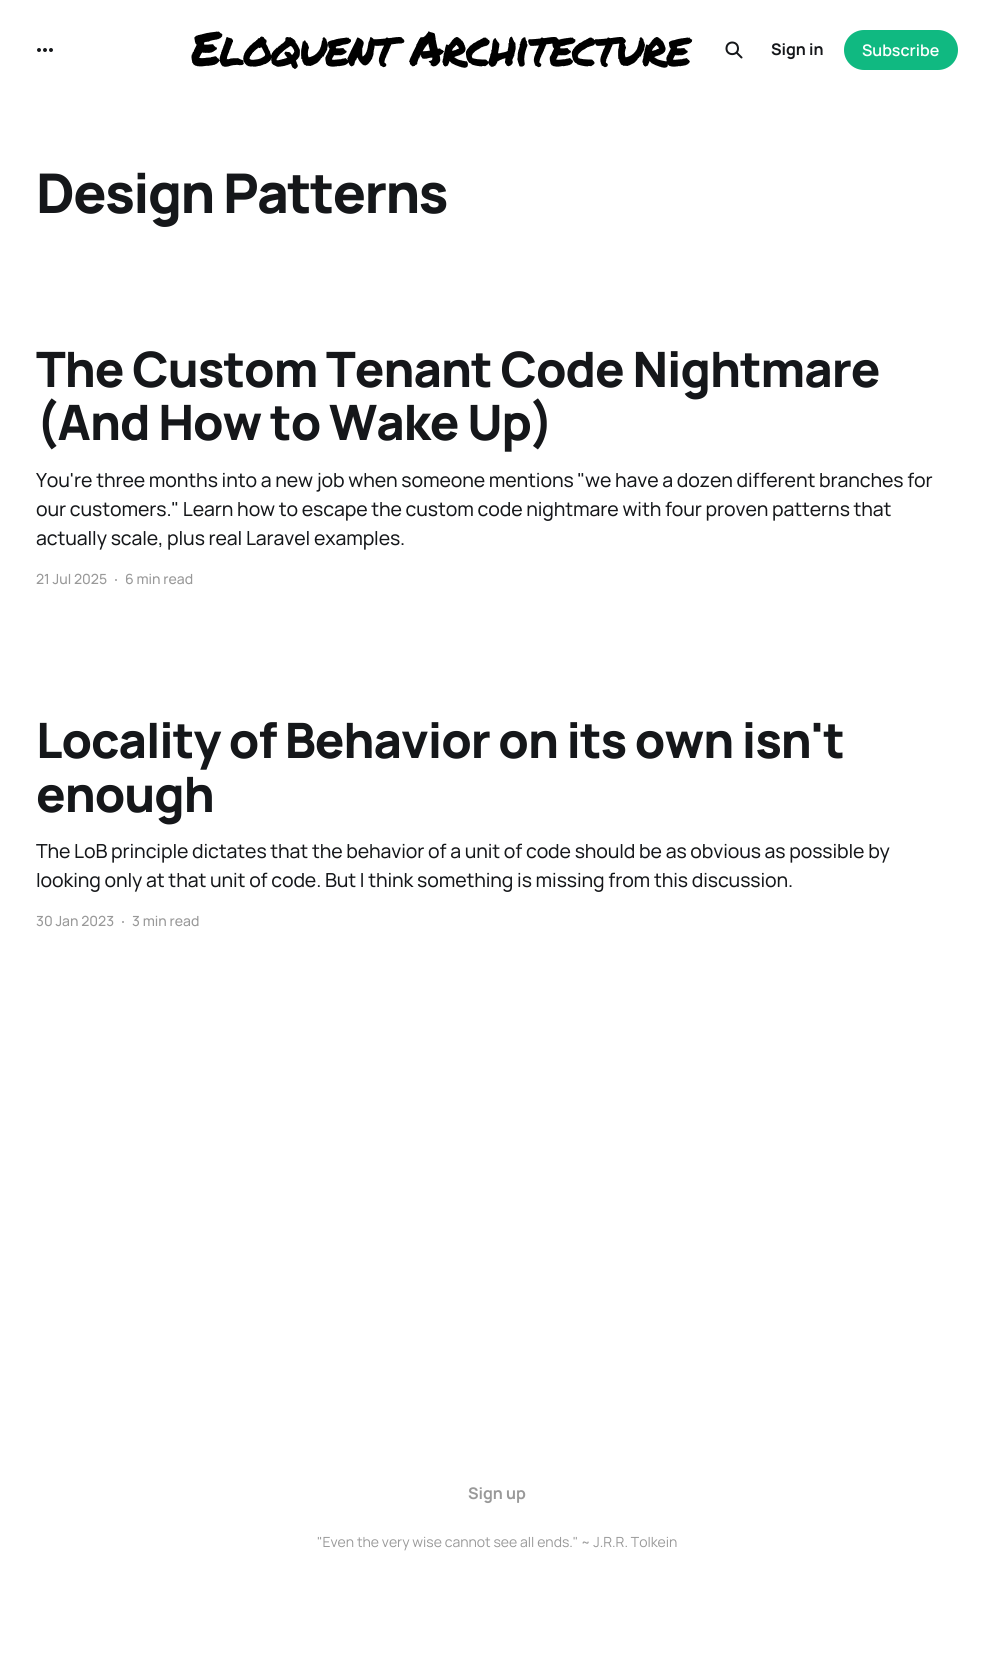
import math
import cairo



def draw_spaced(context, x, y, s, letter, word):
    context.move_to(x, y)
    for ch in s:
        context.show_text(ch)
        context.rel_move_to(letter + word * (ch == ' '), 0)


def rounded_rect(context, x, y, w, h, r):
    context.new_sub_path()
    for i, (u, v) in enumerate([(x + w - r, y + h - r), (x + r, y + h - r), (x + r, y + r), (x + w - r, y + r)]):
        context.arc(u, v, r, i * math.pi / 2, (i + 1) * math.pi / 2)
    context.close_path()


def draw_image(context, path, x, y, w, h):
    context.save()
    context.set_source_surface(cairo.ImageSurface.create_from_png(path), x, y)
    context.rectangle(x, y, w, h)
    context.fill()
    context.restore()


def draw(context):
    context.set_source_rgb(1, 1, 1)
    context.paint()
    draw_image(context, "images/1.png", 37, 48, 16, 4)
    draw_image(context, "images/2.png", 191, 31, 502, 38)
    context.new_path()
    context.move_to(741.5, 57.5)
    context.line_to(736.5, 52.5)
    context.close_path()
    context.move_to(738, 48.5)
    context.curve_to(738, 56, 726.5, 56, 726.5, 48.5)
    context.curve_to(726.5, 40.5, 738, 40.5, 738, 48.5)
    context.close_path()
    context.set_source_rgb(21 / 255, 23 / 255, 26 / 255)
    context.set_line_cap(cairo.LineCap.ROUND)
    context.set_line_join(cairo.LineJoin.ROUND)
    context.stroke()
    context.set_source_rgb(16 / 255, 185 / 255, 129 / 255)
    rounded_rect(context, 844, 30, 114, 40, 20)
    context.fill()
    context.set_source_rgb(153 / 255, 153 / 255, 153 / 255)
    context.arc(116, 580, 1, 0, 2 * math.pi)
    context.fill()
    context.arc(123, 922, 1, 0, 2 * math.pi)
    context.fill()
    context.select_font_face("Manrope", cairo.FontSlant.NORMAL, cairo.FontWeight.BOLD)
    context.set_font_size(16)
    context.set_source_rgb(21 / 255, 23 / 255, 26 / 255)
    context.move_to(771, 55)
    context.show_text("Sign in")
    context.select_font_face("Manrope SemiBold")
    context.set_source_rgb(1, 1, 1)
    context.move_to(862, 56)
    context.show_text("Subscribe")
    context.select_font_face("Manrope ExtraBold")
    context.set_font_size(54.75)
    context.set_source_rgb(21 / 255, 23 / 255, 26 / 255)
    draw_spaced(context, 36, 213, "Design Patterns", -1.6, 0)
    context.set_font_size(48.8)
    draw_spaced(context, 36, 387, "The Custom Tenant Code Nightmare", -1, 0)
    draw_spaced(context, 36, 440, "(And How to Wake Up)", -1, 0)
    context.select_font_face("Manrope")
    context.set_font_size(19.4)
    draw_spaced(context, 36, 487, "You're three months into a new job when someone mentions \"we have a dozen different branches for", -0.1, 0)
    draw_spaced(context, 36, 516, "our customers.\" Learn how to escape the custom code nightmare with four proven patterns that", -0.1, 0)
    draw_spaced(context, 36, 545, "actually scale, plus real Laravel examples.", -0.1, 0)
    context.select_font_face("Manrope Medium")
    context.set_font_size(14)
    context.set_source_rgb(153 / 255, 153 / 255, 153 / 255)
    context.move_to(36, 584)
    context.show_text("21 Jul 2025")
    context.move_to(125, 584)
    context.show_text("6 min read")
    context.select_font_face("Manrope ExtraBold")
    context.set_font_size(48.8)
    context.set_source_rgb(21 / 255, 23 / 255, 26 / 255)
    draw_spaced(context, 36, 758, "Locality of Behavior on its own isn't", -1, -0.25)
    draw_spaced(context, 36, 812, "enough", -1, 0)
    context.select_font_face("Manrope")
    context.set_font_size(19.4)
    draw_spaced(context, 36, 858, "The LoB principle dictates that the behavior of a unit of code should be as obvious as possible by", -0.1, 0)
    draw_spaced(context, 36, 887, "looking only at that unit of code. But I think something is missing from this discussion.", -0.1, 0)
    context.select_font_face("Manrope Medium")
    context.set_font_size(14)
    context.set_source_rgb(153 / 255, 153 / 255, 153 / 255)
    context.move_to(36, 926)
    context.show_text("30 Jan 2023")
    context.move_to(132, 926)
    context.show_text("3 min read")
    context.select_font_face("Manrope", cairo.FontSlant.NORMAL, cairo.FontWeight.BOLD)
    context.set_font_size(16)
    context.move_to(468, 1499)
    context.show_text("Sign up")
    context.select_font_face("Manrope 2")
    context.set_font_size(14)
    context.move_to(317, 1547)
    context.show_text("\"Even the very wise cannot see all ends.\" ~ J.R.R. Tolkein")


surface = cairo.ImageSurface(cairo.Format.RGB24, 994, 1660)
context = cairo.Context(surface)
options = cairo.FontOptions()
options.set_hint_metrics(cairo.HintMetrics.OFF)
options.set_hint_style(cairo.HintStyle.NONE)
context.set_font_options(options)
context.set_miter_limit(4)
draw(context)
surface.write_to_png("out.png")
